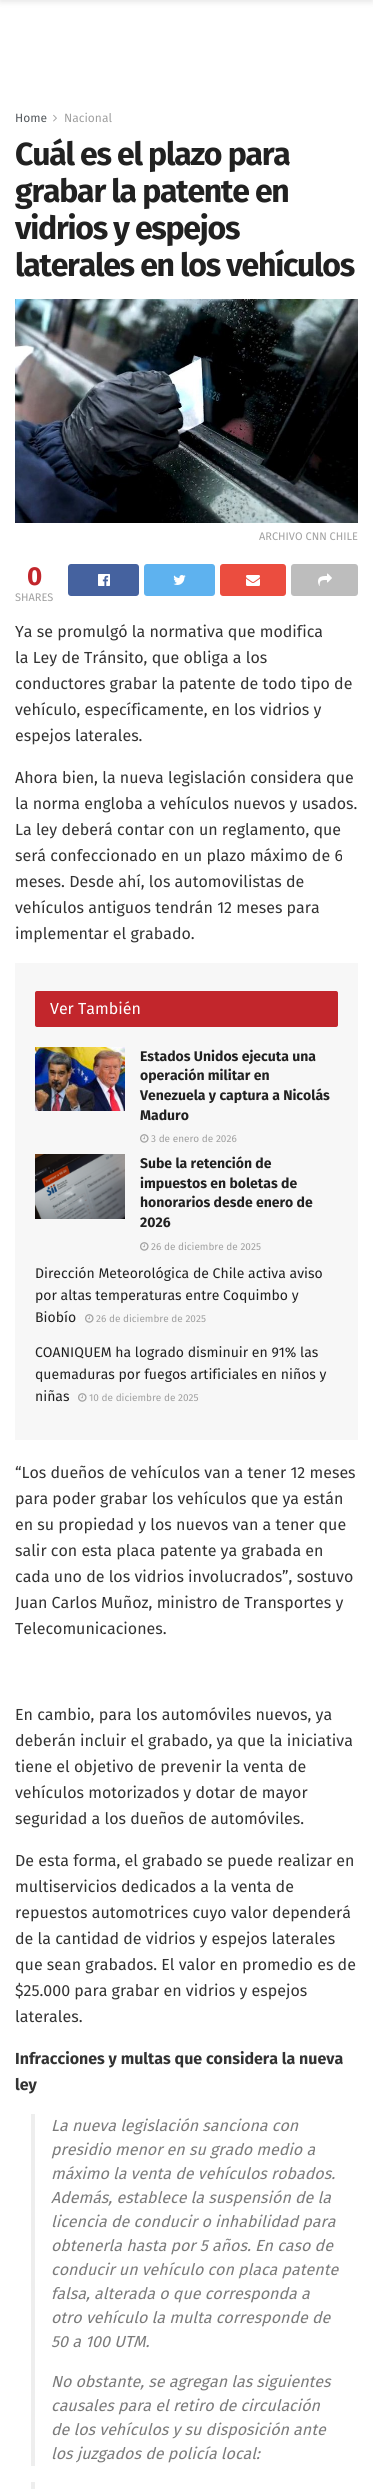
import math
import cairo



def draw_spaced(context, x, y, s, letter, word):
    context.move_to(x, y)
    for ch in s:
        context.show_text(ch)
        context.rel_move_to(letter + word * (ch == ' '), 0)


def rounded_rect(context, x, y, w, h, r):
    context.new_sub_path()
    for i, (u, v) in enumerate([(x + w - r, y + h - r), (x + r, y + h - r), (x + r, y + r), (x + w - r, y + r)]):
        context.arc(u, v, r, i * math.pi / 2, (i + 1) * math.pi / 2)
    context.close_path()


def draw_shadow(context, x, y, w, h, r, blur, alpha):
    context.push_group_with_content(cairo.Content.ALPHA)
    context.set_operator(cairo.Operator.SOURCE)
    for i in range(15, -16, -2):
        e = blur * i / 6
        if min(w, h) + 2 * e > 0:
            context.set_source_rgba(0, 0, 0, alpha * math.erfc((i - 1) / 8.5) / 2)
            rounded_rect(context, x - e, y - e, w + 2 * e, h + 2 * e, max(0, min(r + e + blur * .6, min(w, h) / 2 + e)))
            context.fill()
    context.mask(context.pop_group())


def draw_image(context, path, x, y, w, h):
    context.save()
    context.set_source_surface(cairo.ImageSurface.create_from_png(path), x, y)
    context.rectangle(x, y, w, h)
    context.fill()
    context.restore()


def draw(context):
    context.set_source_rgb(1, 1, 1)
    context.paint()
    context.set_source_rgb(0, 0, 0)
    draw_shadow(context, 0, -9, 373, 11, 0, 3, 0.1)
    draw_image(context, "images/1.png", 53, 114, 4, 8)
    draw_image(context, "images/2.png", 15, 299, 343, 224)
    context.set_source_rgb(69 / 255, 98 / 255, 159 / 255)
    rounded_rect(context, 68, 564, 71, 32, 3)
    context.fill()
    draw_image(context, "images/3.png", 98, 574, 12, 12)
    context.set_source_rgb(94 / 255, 178 / 255, 239 / 255)
    rounded_rect(context, 144, 564, 71, 32, 3)
    context.fill()
    draw_image(context, "images/4.png", 173, 575, 13, 10)
    context.set_source_rgb(235 / 255, 77 / 255, 63 / 255)
    rounded_rect(context, 220, 564, 66, 32, 3)
    context.fill()
    draw_image(context, "images/5.png", 246, 575, 14, 11)
    context.set_source_rgb(189 / 255, 189 / 255, 189 / 255)
    rounded_rect(context, 291, 564, 67, 32, 3)
    context.fill()
    draw_image(context, "images/6.png", 318, 573, 14, 13)
    context.set_source_rgb(247 / 255, 247 / 255, 247 / 255)
    context.rectangle(15, 963, 343, 477)
    context.fill()
    context.set_source_rgb(194 / 255, 38 / 255, 44 / 255)
    rounded_rect(context, 35, 991, 303, 36, 2)
    context.fill()
    draw_image(context, "images/7.png", 35, 1047, 90, 64)
    draw_image(context, "images/8.png", 140, 1134, 9, 9)
    draw_image(context, "images/9.png", 35, 1154, 90, 65)
    draw_image(context, "images/8.png", 140, 1242, 9, 9)
    draw_image(context, "images/8.png", 85, 1314, 9, 9)
    draw_image(context, "images/8.png", 78, 1393, 9, 9)
    context.set_source_rgb(238 / 255, 238 / 255, 238 / 255)
    context.rectangle(31, 2114, 4, 352)
    context.fill()
    context.rectangle(31, 2482, 4, 7)
    context.fill()
    context.select_font_face("Fira Sans")
    context.set_font_size(12)
    context.set_source_rgb(83 / 255, 88 / 255, 92 / 255)
    context.move_to(15, 122)
    context.show_text("Home")
    context.set_source_rgb(160 / 255, 160 / 255, 160 / 255)
    context.move_to(64, 122)
    context.show_text("Nacional")
    context.select_font_face("Fira Sans", cairo.FontSlant.NORMAL, cairo.FontWeight.BOLD)
    context.set_font_size(32)
    context.set_source_rgb(33 / 255, 33 / 255, 33 / 255)
    draw_spaced(context, 15, 165, "Cuál es el plazo para", -1.25, 0)
    draw_spaced(context, 15, 202, "grabar la patente en", -1.25, 0)
    draw_spaced(context, 15, 239, "vidrios y espejos", -1.25, 0)
    draw_spaced(context, 15, 276, "laterales en los vehículos", -1.25, 0)
    context.select_font_face("Fira Sans")
    context.set_font_size(11)
    context.set_source_rgb(160 / 255, 160 / 255, 160 / 255)
    context.move_to(259, 540)
    context.show_text("ARCHIVO CNN CHILE")
    context.select_font_face("Fira Sans", cairo.FontSlant.NORMAL, cairo.FontWeight.BOLD)
    context.set_font_size(26)
    context.set_source_rgb(194 / 255, 38 / 255, 44 / 255)
    context.move_to(27, 585)
    context.show_text("0")
    context.select_font_face("Fira Sans")
    context.set_font_size(11)
    context.set_source_rgb(160 / 255, 160 / 255, 160 / 255)
    context.move_to(15, 601)
    context.show_text("SHARES")
    context.set_font_size(16)
    context.set_source_rgb(51 / 255, 51 / 255, 51 / 255)
    context.move_to(15, 637)
    context.show_text("Ya se promulgó la normativa que modifica")
    context.move_to(15, 663)
    context.show_text("la Ley de Tránsito, que obliga a los")
    context.move_to(15, 689)
    context.show_text("conductores grabar la patente de todo tipo de")
    context.move_to(15, 715)
    context.show_text("vehículo, específicamente, en los vidrios y")
    context.move_to(15, 741)
    context.show_text("espejos laterales.")
    context.move_to(15, 783)
    context.show_text("Ahora bien, la nueva legislación considera que")
    context.move_to(15, 809)
    context.show_text("la norma engloba a vehículos nuevos y usados.")
    context.move_to(15, 835)
    context.show_text("La ley deberá contar con un reglamento, que")
    context.move_to(15, 861)
    context.show_text("será confeccionado en un plazo máximo de 6")
    context.move_to(15, 887)
    context.show_text("meses. Desde ahí, los automovilistas de")
    context.move_to(15, 913)
    context.show_text("vehículos antiguos tendrán 12 meses para")
    context.move_to(15, 939)
    context.show_text("implementar el grabado.")
    context.set_source_rgb(1, 1, 1)
    context.move_to(50, 1014)
    context.show_text("Ver También")
    context.select_font_face("Fira Sans", cairo.FontSlant.NORMAL, cairo.FontWeight.BOLD)
    context.set_font_size(14)
    context.set_source_rgb(33 / 255, 33 / 255, 33 / 255)
    context.move_to(140, 1061)
    context.show_text("Estados Unidos ejecuta una")
    context.move_to(140, 1080)
    context.show_text("operación militar en")
    context.move_to(140, 1100)
    context.show_text("Venezuela y captura a Nicolás")
    context.move_to(140, 1120)
    context.show_text("Maduro")
    context.select_font_face("Fira Sans")
    context.set_font_size(10)
    context.set_source_rgb(160 / 255, 160 / 255, 160 / 255)
    context.move_to(151, 1142)
    context.show_text("3 de enero de 2026")
    context.select_font_face("Fira Sans", cairo.FontSlant.NORMAL, cairo.FontWeight.BOLD)
    context.set_font_size(14)
    context.set_source_rgb(33 / 255, 33 / 255, 33 / 255)
    context.move_to(140, 1168)
    context.show_text("Sube la retención de")
    context.move_to(140, 1188)
    context.show_text("impuestos en boletas de")
    context.move_to(140, 1207)
    context.show_text("honorarios desde enero de")
    context.move_to(140, 1227)
    context.show_text("2026")
    context.select_font_face("Fira Sans")
    context.set_font_size(10)
    context.set_source_rgb(160 / 255, 160 / 255, 160 / 255)
    context.move_to(151, 1250)
    context.show_text("26 de diciembre de 2025")
    context.set_font_size(14)
    context.set_source_rgb(33 / 255, 33 / 255, 33 / 255)
    context.move_to(35, 1278)
    context.show_text("Dirección Meteorológica de Chile activa aviso")
    context.move_to(35, 1300)
    context.show_text("por altas temperaturas entre Coquimbo y")
    context.move_to(35, 1322)
    context.show_text("Biobío")
    context.set_font_size(10)
    context.set_source_rgb(160 / 255, 160 / 255, 160 / 255)
    context.move_to(96, 1322)
    context.show_text("26 de diciembre de 2025")
    context.set_font_size(14)
    context.set_source_rgb(33 / 255, 33 / 255, 33 / 255)
    context.move_to(35, 1357)
    context.show_text("COANIQUEM ha logrado disminuir en 91% las")
    context.move_to(35, 1379)
    context.show_text("quemaduras por fuegos artificiales en niños y")
    context.move_to(35, 1401)
    context.show_text("niñas")
    context.set_font_size(10)
    context.set_source_rgb(160 / 255, 160 / 255, 160 / 255)
    context.move_to(89, 1401)
    context.show_text("10 de diciembre de 2025")
    context.set_font_size(16)
    context.set_source_rgb(51 / 255, 51 / 255, 51 / 255)
    context.move_to(15, 1478)
    context.show_text("“Los dueños de vehículos van a tener 12 meses")
    context.move_to(15, 1504)
    context.show_text("para poder grabar los vehículos que ya están")
    context.move_to(15, 1530)
    context.show_text("en su propiedad y los nuevos van a tener que")
    context.move_to(15, 1556)
    context.show_text("salir con esta placa patente ya grabada en")
    context.move_to(15, 1582)
    context.show_text("cada uno de los vidrios involucrados”, sostuvo")
    context.move_to(15, 1608)
    context.show_text("Juan Carlos Muñoz, ministro de Transportes y")
    context.move_to(15, 1634)
    context.show_text("Telecomunicaciones.")
    context.move_to(15, 1720)
    context.show_text("En cambio, para los automóviles nuevos, ya")
    context.move_to(15, 1746)
    context.show_text("deberán incluir el grabado, ya que la iniciativa")
    context.move_to(15, 1772)
    context.show_text("tiene el objetivo de prevenir la venta de")
    context.move_to(15, 1798)
    context.show_text("vehículos motorizados y dotar de mayor")
    context.move_to(15, 1824)
    context.show_text("seguridad a los dueños de automóviles.")
    context.move_to(15, 1866)
    context.show_text("De esta forma, el grabado se puede realizar en")
    context.move_to(15, 1892)
    context.show_text("multiservicios dedicados a la venta de")
    context.move_to(15, 1918)
    context.show_text("repuestos automotrices cuyo valor dependerá")
    context.move_to(15, 1944)
    context.show_text("de la cantidad de vidrios y espejos laterales")
    context.move_to(15, 1970)
    context.show_text("que sean grabados. El valor en promedio es de")
    context.move_to(15, 1996)
    context.show_text("$25.000 para grabar en vidrios y espejos")
    context.move_to(15, 2022)
    context.show_text("laterales.")
    context.select_font_face("Fira Sans", cairo.FontSlant.NORMAL, cairo.FontWeight.BOLD)
    context.move_to(15, 2064)
    context.show_text("Infracciones y multas que considera la nueva")
    context.move_to(15, 2090)
    context.show_text("ley")
    context.select_font_face("Fira Sans", cairo.FontSlant.ITALIC)
    context.set_source_rgb(123 / 255, 123 / 255, 123 / 255)
    context.move_to(51, 2131)
    context.show_text("La nueva legislación sanciona con")
    context.move_to(51, 2155)
    context.show_text("presidio menor en su grado medio a")
    context.move_to(51, 2179)
    context.show_text("máximo la venta de vehículos robados.")
    context.move_to(51, 2203)
    context.show_text("Además, establece la suspensión de la")
    context.move_to(51, 2227)
    context.show_text("licencia de conducir o inhabilidad para")
    context.move_to(51, 2251)
    context.show_text("obtenerla hasta por 5 años. En caso de")
    context.move_to(51, 2275)
    context.show_text("conducir un vehículo con placa patente")
    context.move_to(51, 2299)
    context.show_text("falsa, alterada o que corresponda a")
    context.move_to(51, 2323)
    context.show_text("otro vehículo la multa corresponde de")
    context.move_to(51, 2347)
    context.show_text("50 a 100 UTM.")
    context.move_to(51, 2387)
    context.show_text("No obstante, se agregan las siguientes")
    context.move_to(51, 2411)
    context.show_text("causales para el retiro de circulación")
    context.move_to(51, 2435)
    context.show_text("de los vehículos y su disposición ante")
    context.move_to(51, 2459)
    context.show_text("los juzgados de policía local:")


surface = cairo.ImageSurface(cairo.Format.RGB24, 373, 2489)
context = cairo.Context(surface)
options = cairo.FontOptions()
options.set_hint_metrics(cairo.HintMetrics.OFF)
options.set_hint_style(cairo.HintStyle.NONE)
context.set_font_options(options)
context.set_miter_limit(4)
draw(context)
surface.write_to_png("out.png")
